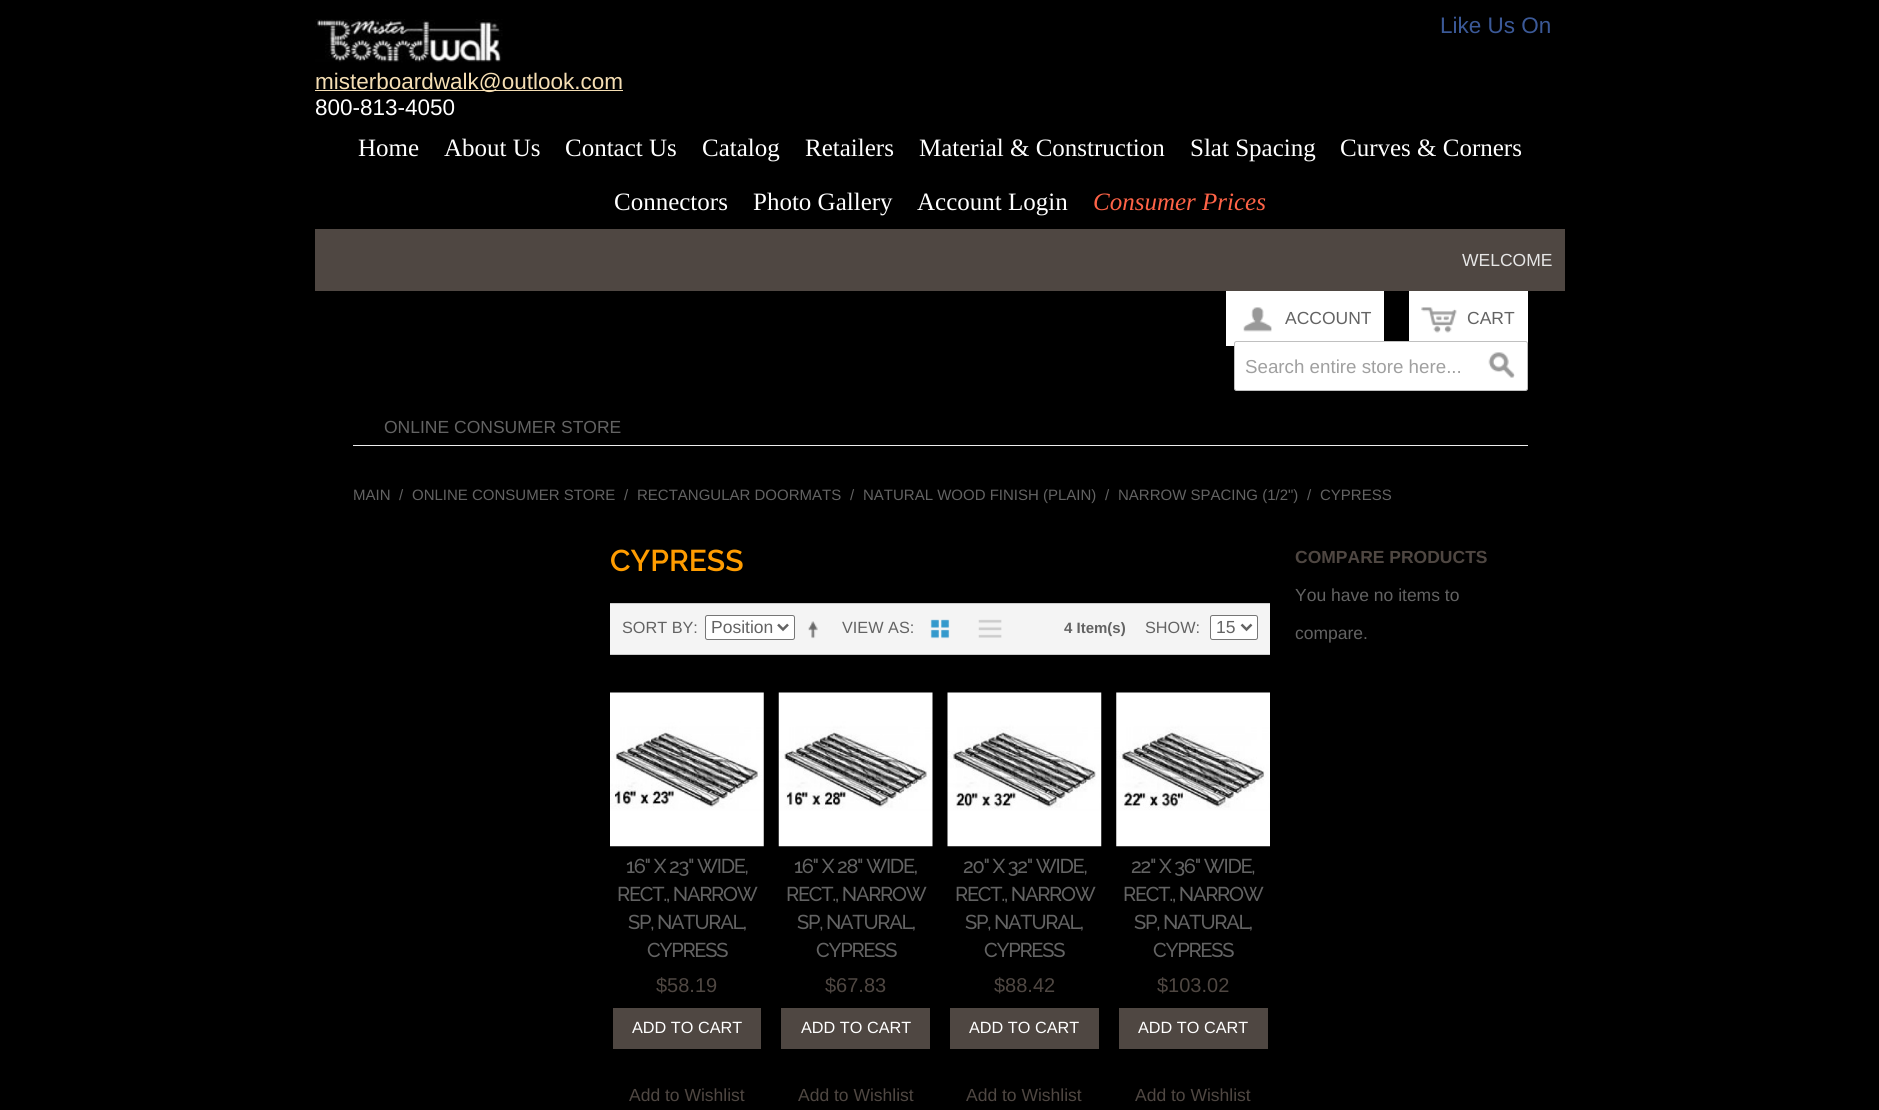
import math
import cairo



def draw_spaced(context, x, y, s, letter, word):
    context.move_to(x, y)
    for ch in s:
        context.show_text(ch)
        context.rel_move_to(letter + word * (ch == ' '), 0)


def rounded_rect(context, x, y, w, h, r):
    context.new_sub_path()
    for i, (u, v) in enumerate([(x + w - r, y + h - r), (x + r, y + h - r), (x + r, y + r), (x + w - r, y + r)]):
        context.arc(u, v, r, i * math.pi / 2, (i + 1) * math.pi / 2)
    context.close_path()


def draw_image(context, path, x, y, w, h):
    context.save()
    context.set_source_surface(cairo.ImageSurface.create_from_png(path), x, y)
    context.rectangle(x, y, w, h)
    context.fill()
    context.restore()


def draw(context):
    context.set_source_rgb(0, 0, 0)
    context.paint()
    draw_image(context, "images/1.png", 315, 19, 188, 44)
    context.set_source_rgb(245 / 255, 222 / 255, 179 / 255)
    context.rectangle(315, 90, 308, 1)
    context.fill()
    context.set_source_rgb(79 / 255, 71 / 255, 66 / 255)
    context.rectangle(315, 229, 1250, 62)
    context.fill()
    context.set_source_rgb(1, 1, 1)
    context.rectangle(1226, 291, 158, 55)
    context.fill()
    draw_image(context, "images/2.png", 1243, 307, 29, 25)
    context.rectangle(1409, 291, 119, 53)
    context.fill()
    draw_image(context, "images/3.png", 1421, 307, 36, 26)
    rounded_rect(context, 1234.5, 341.5, 293, 49, 2)
    context.fill_preserve()
    context.set_source_rgb(192 / 255, 192 / 255, 192 / 255)
    context.set_line_width(1)
    context.stroke()
    draw_image(context, "images/4.png", 1488, 352, 27, 26)
    context.set_source_rgb(237 / 255, 237 / 255, 237 / 255)
    context.rectangle(353, 445, 1175, 1)
    context.fill()
    context.set_source_rgb(244 / 255, 244 / 255, 244 / 255)
    context.rectangle(610, 604, 660, 50)
    context.fill()
    context.set_source_rgb(204 / 255, 204 / 255, 204 / 255)
    context.rectangle(610, 603, 660, 1)
    context.fill()
    context.rectangle(610, 654, 660, 1)
    context.fill()
    context.set_source_rgb(1, 1, 1)
    rounded_rect(context, 705.5, 615.5, 89, 24, 2)
    context.fill_preserve()
    context.set_source_rgb(118 / 255, 118 / 255, 118 / 255)
    context.stroke()
    context.new_path()
    context.move_to(778, 624.5)
    context.line_to(783, 629.5)
    context.line_to(788, 624.5)
    context.set_source_rgb(99 / 255, 99 / 255, 99 / 255)
    context.set_line_width(2.5)
    context.stroke()
    draw_image(context, "images/5.png", 808, 621, 10, 18)
    draw_image(context, "images/6.png", 930, 619, 20, 20)
    draw_image(context, "images/7.png", 978, 619, 24, 19)
    context.set_source_rgb(1, 1, 1)
    rounded_rect(context, 1210.5, 615.5, 47, 24, 2)
    context.fill_preserve()
    context.set_source_rgb(118 / 255, 118 / 255, 118 / 255)
    context.set_line_width(1)
    context.stroke()
    context.new_path()
    context.move_to(1241.5, 624.5)
    context.line_to(1246.5, 629.5)
    context.line_to(1251.5, 624.5)
    context.set_source_rgb(99 / 255, 99 / 255, 99 / 255)
    context.set_line_width(2.5)
    context.stroke()
    draw_image(context, "images/8.png", 610, 692, 154, 155)
    context.set_source_rgb(79 / 255, 71 / 255, 66 / 255)
    context.rectangle(613, 1008, 148, 41)
    context.fill()
    draw_image(context, "images/9.png", 778, 692, 155, 155)
    context.rectangle(781, 1008, 149, 41)
    context.fill()
    draw_image(context, "images/10.png", 947, 692, 155, 155)
    context.rectangle(950, 1008, 149, 41)
    context.fill()
    draw_image(context, "images/11.png", 1116, 692, 154, 155)
    context.rectangle(1119, 1008, 149, 41)
    context.fill()
    context.select_font_face("Liberation Sans")
    context.set_font_size(22.5)
    context.set_source_rgb(59 / 255, 89 / 255, 152 / 255)
    context.move_to(1440, 33)
    context.show_text("Like Us On")
    context.set_source_rgb(245 / 255, 222 / 255, 179 / 255)
    context.move_to(315, 89)
    context.show_text("misterboardwalk@outlook.com")
    context.set_source_rgb(1, 1, 1)
    context.move_to(315, 115)
    context.show_text("800-813-4050")
    context.select_font_face("Liberation Serif")
    context.set_font_size(25)
    context.move_to(358, 156)
    context.show_text("Home")
    context.move_to(444, 156)
    context.show_text("About Us")
    context.move_to(565, 156)
    context.show_text("Contact Us")
    context.move_to(702, 156)
    context.show_text("Catalog")
    context.move_to(805, 156)
    context.show_text("Retailers")
    context.move_to(919, 156)
    context.show_text("Material & Construction")
    context.move_to(1190, 156)
    context.show_text("Slat Spacing")
    context.move_to(1340, 156)
    context.show_text("Curves & Corners")
    context.move_to(614, 210)
    context.show_text("Connectors")
    context.move_to(753, 210)
    context.show_text("Photo Gallery")
    context.move_to(917, 210)
    context.show_text("Account Login")
    context.select_font_face("Liberation Serif", cairo.FontSlant.ITALIC)
    context.set_source_rgb(1, 99 / 255, 71 / 255)
    context.move_to(1093, 210)
    context.show_text("Consumer Prices")
    context.select_font_face("Liberation Sans")
    context.set_font_size(17.5)
    context.set_source_rgb(230 / 255, 230 / 255, 230 / 255)
    context.move_to(1462, 266)
    context.show_text("WELCOME")
    context.set_source_rgb(99 / 255, 99 / 255, 99 / 255)
    context.move_to(1285, 324)
    context.show_text("ACCOUNT")
    context.move_to(1467, 324)
    context.show_text("CART")
    context.set_font_size(18.75)
    context.set_source_rgb(160 / 255, 160 / 255, 160 / 255)
    context.move_to(1245, 373)
    context.show_text("Search entire store here...")
    context.set_font_size(17.5)
    context.set_source_rgb(99 / 255, 99 / 255, 99 / 255)
    context.move_to(384, 433)
    context.show_text("ONLINE CONSUMER STORE")
    context.set_font_size(15)
    context.move_to(353, 500)
    context.show_text("MAIN")
    context.move_to(399, 500)
    context.show_text("/")
    context.move_to(412, 500)
    context.show_text("ONLINE CONSUMER STORE")
    context.move_to(624, 500)
    context.show_text("/")
    context.move_to(637, 500)
    context.show_text("RECTANGULAR DOORMATS")
    context.move_to(850, 500)
    context.show_text("/")
    context.move_to(863, 500)
    context.show_text("NATURAL WOOD FINISH (PLAIN)")
    context.move_to(1105, 500)
    context.show_text("/")
    context.move_to(1118, 500)
    context.show_text("NARROW SPACING (1/2\")")
    context.move_to(1307, 500)
    context.show_text("/")
    context.move_to(1320, 500)
    context.show_text("CYPRESS")
    context.select_font_face("Raleway SemiBold")
    context.set_font_size(30)
    context.set_source_rgb(1, 156 / 255, 0)
    context.move_to(610, 571)
    context.show_text("CYPRESS")
    context.select_font_face("Liberation Sans")
    context.set_font_size(16.25)
    context.set_source_rgb(99 / 255, 99 / 255, 99 / 255)
    context.move_to(622, 633)
    context.show_text("SORT BY:")
    context.set_font_size(17.5)
    context.move_to(711, 633)
    context.show_text("Position")
    context.set_font_size(16.25)
    context.move_to(842, 633)
    context.show_text("VIEW AS:")
    context.select_font_face("Liberation Sans", cairo.FontSlant.NORMAL, cairo.FontWeight.BOLD)
    context.set_font_size(15)
    context.move_to(1064, 633)
    context.show_text("4 Item(s)")
    context.select_font_face("Liberation Sans")
    context.set_font_size(16.25)
    context.move_to(1145, 633)
    context.show_text("SHOW:")
    context.set_font_size(17.5)
    context.move_to(1216, 633)
    context.show_text("15")
    context.select_font_face("Raleway Medium")
    context.set_font_size(20)
    draw_spaced(context, 626, 873, "16\" X 23\" WIDE,", -1.25, 0)
    draw_spaced(context, 617, 901, "RECT., NARROW", -1.25, 0)
    draw_spaced(context, 628, 929, "SP, NATURAL,", -1.25, 0)
    draw_spaced(context, 647, 957, "CYPRESS", -1.25, 0)
    context.select_font_face("Liberation Sans")
    context.set_source_rgb(79 / 255, 71 / 255, 66 / 255)
    context.move_to(656, 992)
    context.show_text("$58.19")
    context.set_font_size(16.25)
    context.set_source_rgb(1, 1, 1)
    context.move_to(632, 1033)
    context.show_text("ADD TO CART")
    context.set_font_size(17.5)
    context.set_source_rgb(79 / 255, 71 / 255, 66 / 255)
    context.move_to(629, 1101)
    context.show_text("Add to Wishlist")
    context.select_font_face("Raleway Medium")
    context.set_font_size(20)
    context.set_source_rgb(99 / 255, 99 / 255, 99 / 255)
    draw_spaced(context, 794, 873, "16\" X 28\" WIDE,", -1.25, 0)
    draw_spaced(context, 786, 901, "RECT., NARROW", -1.25, 0)
    draw_spaced(context, 797, 929, "SP, NATURAL,", -1.25, 0)
    draw_spaced(context, 816, 957, "CYPRESS", -1.25, 0)
    context.select_font_face("Liberation Sans")
    context.set_source_rgb(79 / 255, 71 / 255, 66 / 255)
    context.move_to(825, 992)
    context.show_text("$67.83")
    context.set_font_size(16.25)
    context.set_source_rgb(1, 1, 1)
    context.move_to(801, 1033)
    context.show_text("ADD TO CART")
    context.set_font_size(17.5)
    context.set_source_rgb(79 / 255, 71 / 255, 66 / 255)
    context.move_to(798, 1101)
    context.show_text("Add to Wishlist")
    context.select_font_face("Raleway Medium")
    context.set_font_size(20)
    context.set_source_rgb(99 / 255, 99 / 255, 99 / 255)
    draw_spaced(context, 963, 873, "20\" X 32\" WIDE,", -1.25, 0)
    draw_spaced(context, 955, 901, "RECT., NARROW", -1.25, 0)
    draw_spaced(context, 965, 929, "SP, NATURAL,", -1.25, 0)
    draw_spaced(context, 984, 957, "CYPRESS", -1.25, 0)
    context.select_font_face("Liberation Sans")
    context.set_source_rgb(79 / 255, 71 / 255, 66 / 255)
    context.move_to(994, 992)
    context.show_text("$88.42")
    context.set_font_size(16.25)
    context.set_source_rgb(1, 1, 1)
    context.move_to(969, 1033)
    context.show_text("ADD TO CART")
    context.set_font_size(17.5)
    context.set_source_rgb(79 / 255, 71 / 255, 66 / 255)
    context.move_to(966, 1101)
    context.show_text("Add to Wishlist")
    context.select_font_face("Raleway Medium")
    context.set_font_size(20)
    context.set_source_rgb(99 / 255, 99 / 255, 99 / 255)
    draw_spaced(context, 1131, 873, "22\" X 36\" WIDE,", -1.25, 0)
    draw_spaced(context, 1123, 901, "RECT., NARROW", -1.25, 0)
    draw_spaced(context, 1134, 929, "SP, NATURAL,", -1.25, 0)
    draw_spaced(context, 1153, 957, "CYPRESS", -1.25, 0)
    context.select_font_face("Liberation Sans")
    context.set_source_rgb(79 / 255, 71 / 255, 66 / 255)
    context.move_to(1157, 992)
    context.show_text("$103.02")
    context.set_font_size(16.25)
    context.set_source_rgb(1, 1, 1)
    context.move_to(1138, 1033)
    context.show_text("ADD TO CART")
    context.set_font_size(17.5)
    context.set_source_rgb(79 / 255, 71 / 255, 66 / 255)
    context.move_to(1135, 1101)
    context.show_text("Add to Wishlist")
    context.select_font_face("Liberation Sans", cairo.FontSlant.NORMAL, cairo.FontWeight.BOLD)
    context.move_to(1295, 563)
    context.show_text("COMPARE PRODUCTS")
    context.select_font_face("Liberation Sans")
    context.set_source_rgb(99 / 255, 99 / 255, 99 / 255)
    context.move_to(1295, 601)
    context.show_text("You have no items to")
    context.move_to(1295, 639)
    context.show_text("compare.")


surface = cairo.ImageSurface(cairo.Format.RGB24, 1879, 1110)
context = cairo.Context(surface)
options = cairo.FontOptions()
options.set_hint_metrics(cairo.HintMetrics.OFF)
options.set_hint_style(cairo.HintStyle.NONE)
context.set_font_options(options)
context.set_miter_limit(4)
draw(context)
surface.write_to_png("out.png")
